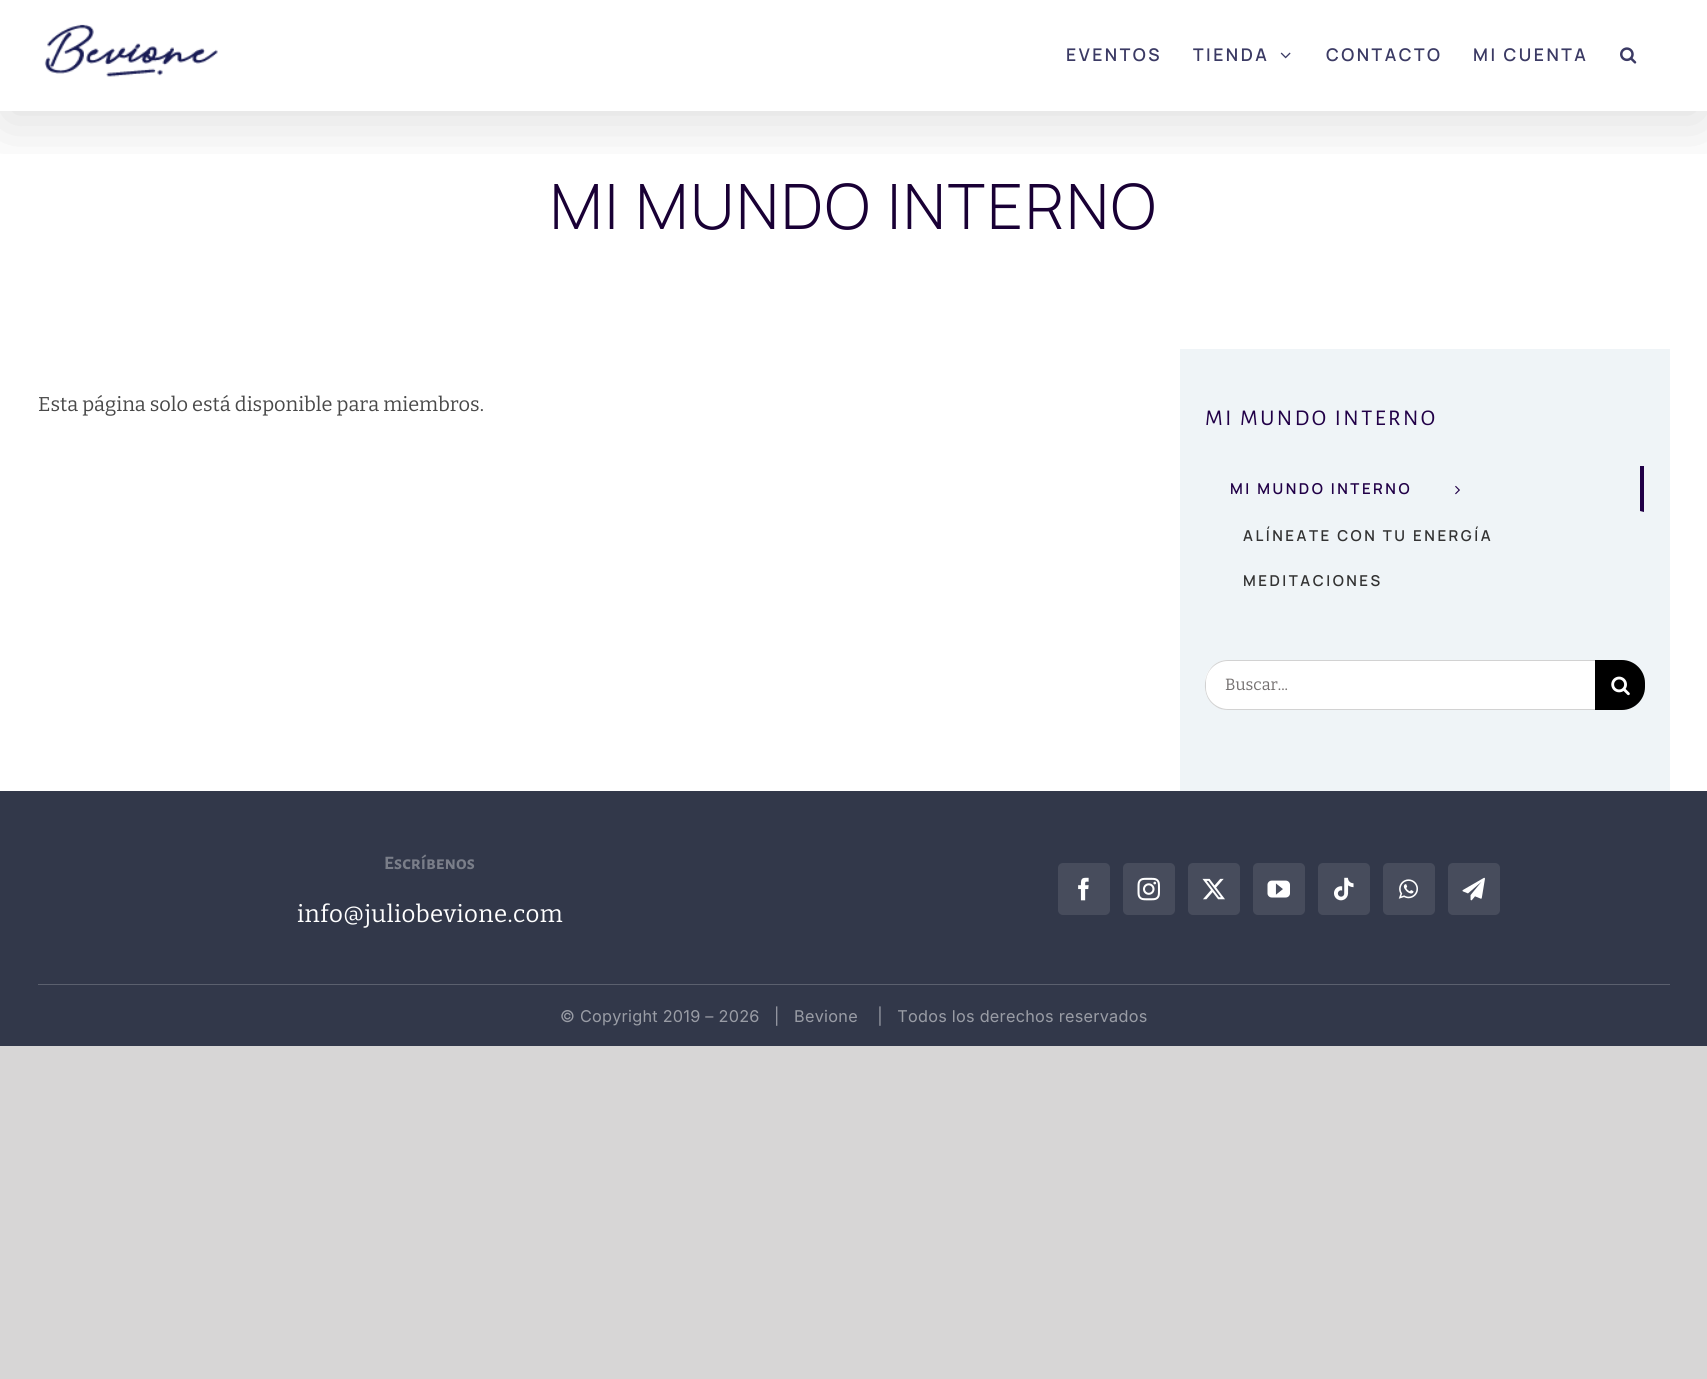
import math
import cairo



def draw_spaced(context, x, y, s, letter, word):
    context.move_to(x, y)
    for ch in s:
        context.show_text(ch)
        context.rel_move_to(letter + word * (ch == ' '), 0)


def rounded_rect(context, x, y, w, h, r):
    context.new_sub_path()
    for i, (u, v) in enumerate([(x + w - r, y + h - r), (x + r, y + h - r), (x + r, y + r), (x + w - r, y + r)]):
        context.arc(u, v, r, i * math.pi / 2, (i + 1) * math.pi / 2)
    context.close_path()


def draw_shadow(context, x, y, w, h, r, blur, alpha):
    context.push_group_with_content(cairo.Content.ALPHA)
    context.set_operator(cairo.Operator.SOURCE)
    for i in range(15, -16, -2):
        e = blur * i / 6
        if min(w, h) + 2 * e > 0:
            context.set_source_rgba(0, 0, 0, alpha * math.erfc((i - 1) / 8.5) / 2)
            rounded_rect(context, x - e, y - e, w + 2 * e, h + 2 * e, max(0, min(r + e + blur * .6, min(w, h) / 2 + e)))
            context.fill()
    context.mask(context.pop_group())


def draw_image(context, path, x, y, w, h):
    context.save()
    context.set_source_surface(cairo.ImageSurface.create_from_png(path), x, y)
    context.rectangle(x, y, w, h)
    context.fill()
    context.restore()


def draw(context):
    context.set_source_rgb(215 / 255, 214 / 255, 214 / 255)
    context.paint()
    context.set_source_rgb(1, 1, 1)
    context.rectangle(0, 0, 1707, 791)
    context.fill()
    context.save()
    context.rectangle(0, 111, 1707, 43)
    context.clip()
    context.set_source_rgb(0, 0, 0)
    draw_shadow(context, 3, 15, 1702, 106, 0, 31, 0.14)
    context.restore()
    draw_image(context, "images/1.png", 44, 24, 174, 53)
    draw_image(context, "images/2.png", 1280, 52, 11, 7)
    draw_image(context, "images/3.png", 1620, 47, 17, 17)
    context.set_source_rgb(239 / 255, 244 / 255, 247 / 255)
    context.rectangle(1180, 349, 490, 442)
    context.fill()
    context.set_source_rgb(33 / 255, 0, 71 / 255)
    context.new_path()
    context.move_to(1644, 466)
    context.line_to(1644, 512)
    context.line_to(1640, 511)
    context.line_to(1640, 466)
    context.close_path()
    context.fill()
    draw_image(context, "images/4.png", 1455, 485, 5, 10)
    context.set_source_rgb(1, 1, 1)
    context.new_path()
    context.move_to(1228, 660)
    context.line_to(1595, 660)
    context.line_to(1595, 710)
    context.line_to(1228, 710)
    context.curve_to(1215.5, 710, 1205, 699.5, 1205, 687)
    context.line_to(1205, 683)
    context.curve_to(1205, 670.5, 1215.5, 660, 1228, 660)
    context.close_path()
    context.fill()
    context.set_source_rgb(210 / 255, 210 / 255, 210 / 255)
    context.new_path()
    context.move_to(1228, 660)
    context.curve_to(1204, 660, 1197, 694, 1215, 706)
    context.curve_to(1219, 709, 1223, 710, 1228, 710)
    context.line_to(1595, 710)
    context.line_to(1595, 709)
    context.line_to(1228, 709)
    context.curve_to(1216, 709, 1206, 699, 1206, 688)
    context.line_to(1206, 682)
    context.curve_to(1206, 671, 1216, 661, 1228, 661)
    context.line_to(1595, 661)
    context.line_to(1595, 660)
    context.close_path()
    context.fill()
    context.set_source_rgb(0, 0, 0)
    context.new_path()
    context.move_to(1595, 660)
    context.line_to(1622, 660)
    context.curve_to(1634.5, 660, 1645, 670.5, 1645, 683)
    context.line_to(1645, 687)
    context.curve_to(1645, 699.5, 1634.5, 710, 1622, 710)
    context.line_to(1595, 710)
    context.close_path()
    context.fill()
    draw_image(context, "images/5.png", 1611, 676, 19, 20)
    context.set_source_rgb(50 / 255, 56 / 255, 74 / 255)
    context.rectangle(0, 791, 1707, 255)
    context.fill()
    context.set_source_rgb(71 / 255, 76 / 255, 92 / 255)
    rounded_rect(context, 1058, 863, 52, 52, 5)
    context.fill()
    draw_image(context, "images/6.png", 1078, 877, 11, 24)
    rounded_rect(context, 1123, 863, 52, 52, 5)
    context.fill()
    draw_image(context, "images/7.png", 1137, 877, 23, 24)
    rounded_rect(context, 1188, 863, 52, 52, 5)
    context.fill()
    draw_image(context, "images/8.png", 1202, 878, 23, 22)
    rounded_rect(context, 1253, 863, 52, 52, 5)
    context.fill()
    draw_image(context, "images/9.png", 1267, 880, 23, 18)
    rounded_rect(context, 1318, 863, 52, 52, 5)
    context.fill()
    draw_image(context, "images/10.png", 1334, 877, 20, 24)
    rounded_rect(context, 1383, 863, 52, 52, 5)
    context.fill()
    draw_image(context, "images/11.png", 1398, 879, 20, 20)
    rounded_rect(context, 1448, 863, 52, 52, 5)
    context.fill()
    draw_image(context, "images/12.png", 1462, 877, 23, 24)
    context.set_source_rgb(91 / 255, 96 / 255, 110 / 255)
    context.rectangle(38, 984, 1632, 1)
    context.fill()
    context.select_font_face("Manrope SemiBold")
    context.set_font_size(17.5)
    context.set_source_rgb(59 / 255, 58 / 255, 100 / 255)
    draw_spaced(context, 1066, 61, "EVENTOS", 2.5, 0)
    draw_spaced(context, 1193, 61, "TIENDA", 2.5, 0)
    draw_spaced(context, 1326, 61, "CONTACTO", 2.5, 0)
    draw_spaced(context, 1473, 61, "MI CUENTA", 2.5, 0)
    context.select_font_face("Manrope Light")
    context.set_font_size(62.5)
    context.set_source_rgb(25 / 255, 0, 53 / 255)
    draw_spaced(context, 550, 229, "MI MUNDO INTERNO", 2.5, 0)
    context.select_font_face("Bitter")
    context.set_font_size(20)
    context.set_source_rgb(73 / 255, 73 / 255, 73 / 255)
    context.move_to(38, 411)
    context.show_text("Esta página solo está disponible para miembros.")
    context.select_font_face("Alegreya Sans SC")
    context.set_font_size(22.5)
    context.set_source_rgb(33 / 255, 0, 71 / 255)
    draw_spaced(context, 1205, 425, "MI MUNDO INTERNO", 2.5, 0)
    context.select_font_face("Manrope SemiBold")
    context.set_font_size(15)
    draw_spaced(context, 1230, 494, "MI MUNDO INTERNO", 2.5, 0)
    context.set_source_rgb(51 / 255, 51 / 255, 51 / 255)
    draw_spaced(context, 1243, 541, "ALÍNEATE CON TU ENERGÍA", 2.5, 0)
    draw_spaced(context, 1243, 586, "MEDITACIONES", 2.5, 0)
    context.select_font_face("Bitter")
    context.set_font_size(16.25)
    context.set_source_rgb(117 / 255, 113 / 255, 113 / 255)
    context.move_to(1225, 690)
    context.show_text("Buscar...")
    context.select_font_face("Alegreya Sans SC", cairo.FontSlant.NORMAL, cairo.FontWeight.BOLD)
    context.set_font_size(19)
    context.set_source_rgb(122 / 255, 126 / 255, 137 / 255)
    context.move_to(384, 869)
    context.show_text("Escríbenos")
    context.select_font_face("Bitter")
    context.set_font_size(24)
    context.set_source_rgb(1, 1, 1)
    draw_spaced(context, 297, 922, "info@juliobevione.com", 0.4, 0)
    context.select_font_face("Inter")
    context.set_font_size(16.25)
    context.set_source_rgb(153 / 255, 156 / 255, 165 / 255)
    draw_spaced(context, 560, 1022, "© Copyright 2019 – 2026", 0.25, 0)
    draw_spaced(context, 774, 1022, "|   Bevione    |   Todos los derechos reservados", 0.25, 0)


surface = cairo.ImageSurface(cairo.Format.RGB24, 1707, 1379)
context = cairo.Context(surface)
options = cairo.FontOptions()
options.set_hint_metrics(cairo.HintMetrics.OFF)
options.set_hint_style(cairo.HintStyle.NONE)
context.set_font_options(options)
context.set_miter_limit(4)
draw(context)
surface.write_to_png("out.png")
